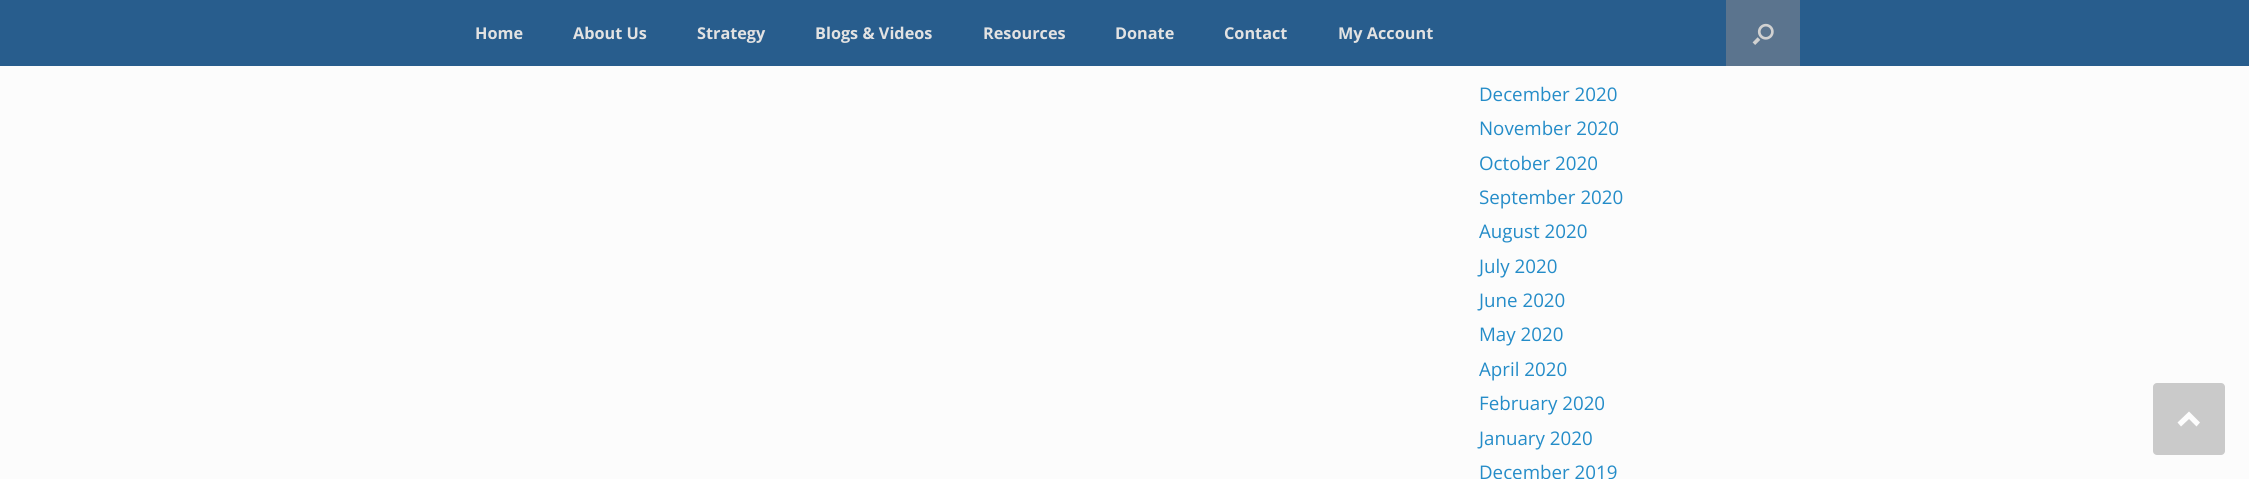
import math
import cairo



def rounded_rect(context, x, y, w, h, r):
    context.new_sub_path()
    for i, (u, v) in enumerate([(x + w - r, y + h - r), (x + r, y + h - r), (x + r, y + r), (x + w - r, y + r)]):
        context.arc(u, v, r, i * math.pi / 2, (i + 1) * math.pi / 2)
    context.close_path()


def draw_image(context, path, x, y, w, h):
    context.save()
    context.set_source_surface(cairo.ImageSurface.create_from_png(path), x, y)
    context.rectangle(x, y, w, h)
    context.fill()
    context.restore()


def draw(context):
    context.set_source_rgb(252 / 255, 252 / 255, 252 / 255)
    context.paint()
    context.set_source_rgb(40 / 255, 93 / 255, 141 / 255)
    context.rectangle(0, 0, 2249, 66)
    context.fill()
    context.set_source_rgb(91 / 255, 116 / 255, 142 / 255)
    context.rectangle(1726, 0, 74, 66)
    context.fill()
    draw_image(context, "images/1.png", 1752, 23, 22, 22)
    context.set_source_rgb(202 / 255, 202 / 255, 202 / 255)
    rounded_rect(context, 2153, 383, 72, 72, 4)
    context.fill()
    context.set_source_rgb(253 / 255, 253 / 255, 253 / 255)
    context.new_path()
    context.move_to(2200, 422.5)
    context.line_to(2189, 411.5)
    context.line_to(2177.5, 422.5)
    context.line_to(2181, 426.5)
    context.line_to(2189, 419)
    context.line_to(2196.5, 426.5)
    context.close_path()
    context.fill()
    context.select_font_face("Open Sans", cairo.FontSlant.NORMAL, cairo.FontWeight.BOLD)
    context.set_font_size(16.25)
    context.set_source_rgb(226 / 255, 226 / 255, 226 / 255)
    context.move_to(475, 39)
    context.show_text("Home")
    context.move_to(573, 39)
    context.show_text("About Us")
    context.move_to(697, 39)
    context.show_text("Strategy")
    context.move_to(815, 39)
    context.show_text("Blogs & Videos")
    context.move_to(983, 39)
    context.show_text("Resources")
    context.move_to(1115, 39)
    context.show_text("Donate")
    context.move_to(1224, 39)
    context.show_text("Contact")
    context.move_to(1338, 39)
    context.show_text("My Account")
    context.select_font_face("Open Sans")
    context.set_font_size(18.75)
    context.set_source_rgb(36 / 255, 140 / 255, 200 / 255)
    context.move_to(1479, 101)
    context.show_text("December 2020")
    context.move_to(1479, 135)
    context.show_text("November 2020")
    context.move_to(1479, 170)
    context.show_text("October 2020")
    context.move_to(1479, 204)
    context.show_text("September 2020")
    context.move_to(1479, 238)
    context.show_text("August 2020")
    context.move_to(1479, 273)
    context.show_text("July 2020")
    context.move_to(1479, 307)
    context.show_text("June 2020")
    context.move_to(1479, 341)
    context.show_text("May 2020")
    context.move_to(1479, 376)
    context.show_text("April 2020")
    context.move_to(1479, 410)
    context.show_text("February 2020")
    context.move_to(1479, 445)
    context.show_text("January 2020")
    context.move_to(1479, 479)
    context.show_text("December 2019")


surface = cairo.ImageSurface(cairo.Format.RGB24, 2249, 479)
context = cairo.Context(surface)
options = cairo.FontOptions()
options.set_hint_metrics(cairo.HintMetrics.OFF)
options.set_hint_style(cairo.HintStyle.NONE)
context.set_font_options(options)
context.set_miter_limit(4)
draw(context)
surface.write_to_png("out.png")
